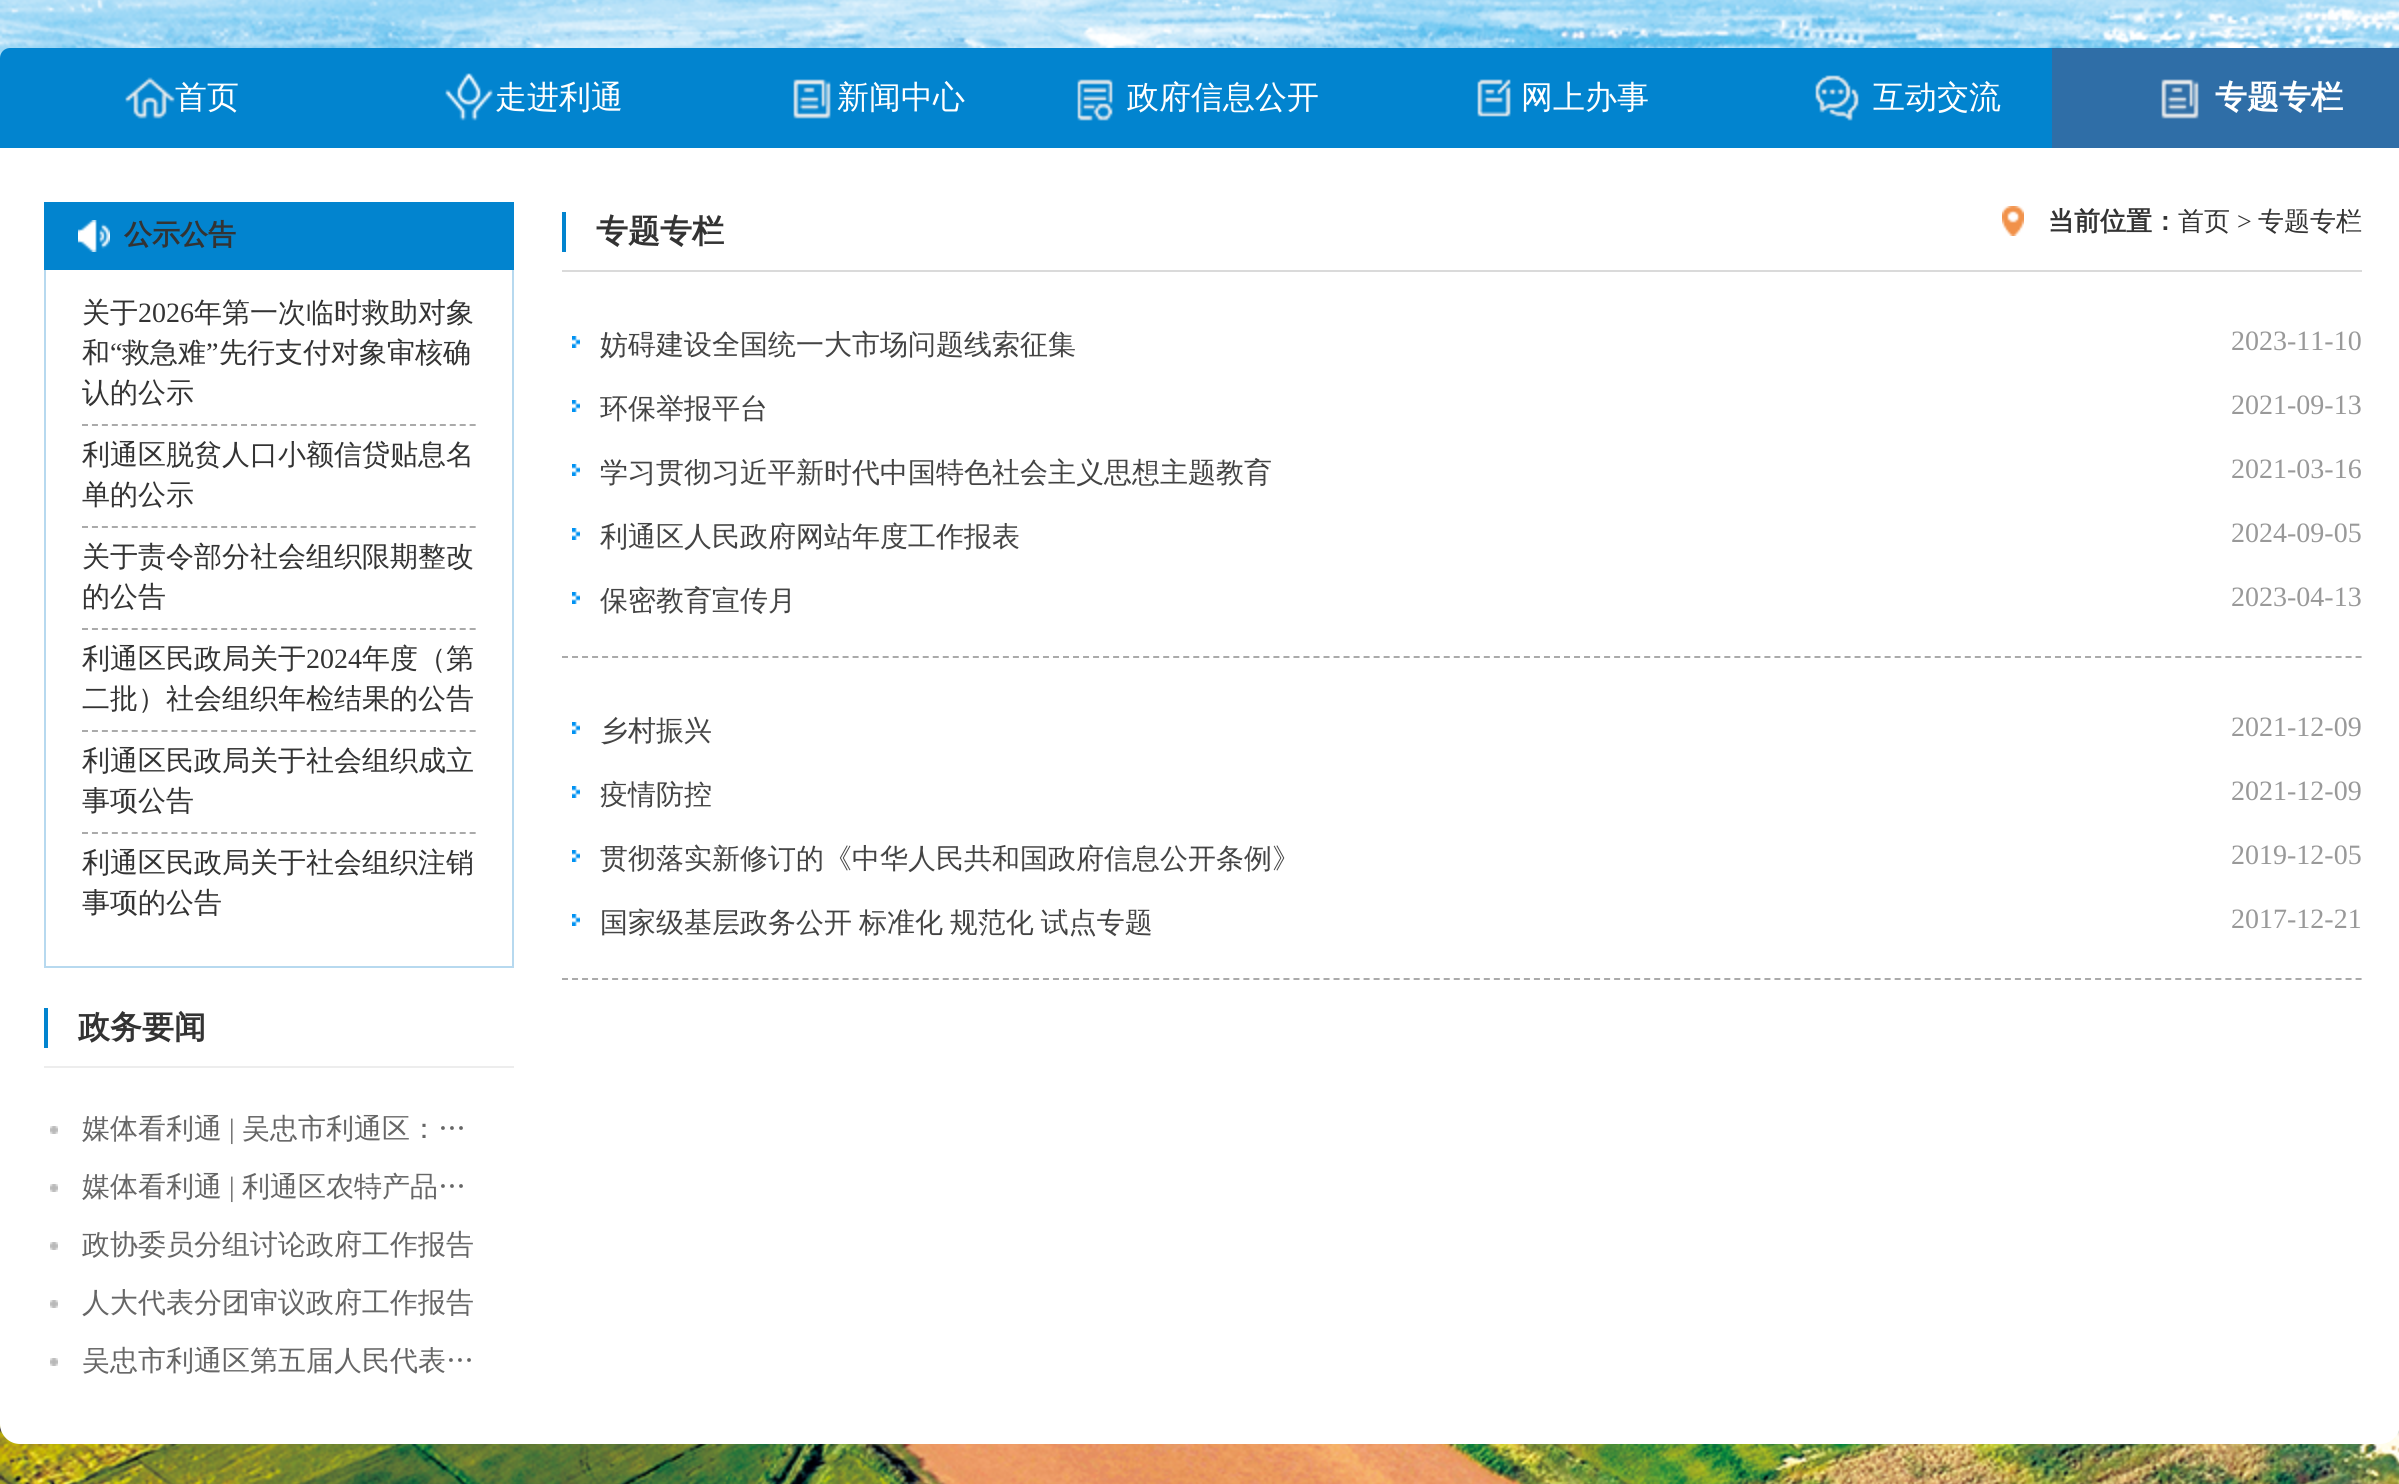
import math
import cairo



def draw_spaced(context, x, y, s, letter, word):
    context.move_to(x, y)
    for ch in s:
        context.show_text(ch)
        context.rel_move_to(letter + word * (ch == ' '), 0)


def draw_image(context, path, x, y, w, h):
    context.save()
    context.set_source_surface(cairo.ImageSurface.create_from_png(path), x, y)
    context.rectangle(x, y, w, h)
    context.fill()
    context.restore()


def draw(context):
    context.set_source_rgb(1, 1, 1)
    context.paint()
    draw_image(context, "images/1.png", 0, 0, 2399, 1484)
    context.set_source_rgb(2 / 255, 132 / 255, 207 / 255)
    context.new_path()
    context.move_to(10, 48)
    context.line_to(2390, 48)
    context.curve_to(2395.5, 48, 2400, 52.5, 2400, 58)
    context.line_to(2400, 148)
    context.line_to(0, 148)
    context.line_to(0, 58)
    context.curve_to(0, 52.5, 4.5, 48, 10, 48)
    context.close_path()
    context.fill()
    draw_image(context, "images/2.png", 125, 77, 50, 42)
    draw_image(context, "images/3.png", 445, 73, 48, 48)
    draw_image(context, "images/4.png", 793, 79, 38, 40)
    draw_image(context, "images/5.png", 1077, 79, 36, 42)
    draw_image(context, "images/6.png", 1477, 79, 34, 38)
    draw_image(context, "images/7.png", 1815, 75, 44, 46)
    context.set_source_rgb(47 / 255, 110 / 255, 167 / 255)
    context.rectangle(2052, 48, 347, 100)
    context.fill()
    draw_image(context, "images/8.png", 2161, 79, 38, 40)
    context.set_source_rgb(1, 1, 1)
    context.new_path()
    context.move_to(0, 148)
    context.line_to(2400, 148)
    context.line_to(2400, 1424)
    context.curve_to(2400, 1435, 2391, 1444, 2380, 1444)
    context.line_to(20, 1444)
    context.curve_to(9, 1444, 0, 1435, 0, 1424)
    context.close_path()
    context.fill()
    context.set_source_rgb(2 / 255, 132 / 255, 207 / 255)
    context.rectangle(44, 202, 470, 68)
    context.fill()
    draw_image(context, "images/9.png", 78, 220, 32, 32)
    context.set_source_rgb(183 / 255, 217 / 255, 239 / 255)
    context.rectangle(512, 270, 2, 698)
    context.fill()
    context.rectangle(44, 966, 470, 2)
    context.fill()
    context.rectangle(44, 270, 2, 698)
    context.fill()
    context.new_path()
    context.move_to(82, 425)
    context.line_to(476, 425)
    context.set_source_rgb(170 / 255, 170 / 255, 170 / 255)
    context.set_dash([6, 3.94])
    context.stroke()
    context.new_path()
    context.move_to(82, 527)
    context.line_to(476, 527)
    context.stroke()
    context.new_path()
    context.move_to(82, 629)
    context.line_to(476, 629)
    context.stroke()
    context.new_path()
    context.move_to(82, 731)
    context.line_to(476, 731)
    context.stroke()
    context.new_path()
    context.move_to(82, 833)
    context.line_to(476, 833)
    context.stroke()
    context.set_source_rgb(237 / 255, 237 / 255, 237 / 255)
    context.rectangle(44, 1066, 470, 2)
    context.fill()
    context.set_source_rgb(2 / 255, 132 / 255, 207 / 255)
    context.rectangle(44, 1008, 4, 40)
    context.fill()
    draw_image(context, "images/10.png", 50, 1126, 8, 8)
    draw_image(context, "images/10.png", 50, 1184, 8, 8)
    draw_image(context, "images/10.png", 50, 1242, 8, 8)
    draw_image(context, "images/10.png", 50, 1300, 8, 8)
    draw_image(context, "images/10.png", 50, 1358, 8, 8)
    context.set_source_rgb(218 / 255, 218 / 255, 218 / 255)
    context.rectangle(562, 270, 1800, 2)
    context.fill()
    context.set_source_rgb(2 / 255, 132 / 255, 207 / 255)
    context.rectangle(562, 212, 4, 40)
    context.fill()
    draw_image(context, "images/11.png", 2002, 206, 22, 30)
    context.new_path()
    context.move_to(562, 657)
    context.line_to(2362, 657)
    context.set_source_rgb(170 / 255, 170 / 255, 170 / 255)
    context.set_dash([6, 4.02])
    context.stroke()
    draw_image(context, "images/12.png", 572, 336, 8, 12)
    draw_image(context, "images/12.png", 572, 400, 8, 12)
    draw_image(context, "images/12.png", 572, 464, 8, 12)
    draw_image(context, "images/12.png", 572, 528, 8, 12)
    draw_image(context, "images/12.png", 572, 592, 8, 12)
    context.new_path()
    context.move_to(562, 979)
    context.line_to(2362, 979)
    context.stroke()
    draw_image(context, "images/12.png", 572, 722, 8, 12)
    draw_image(context, "images/12.png", 572, 786, 8, 12)
    draw_image(context, "images/12.png", 572, 850, 8, 12)
    draw_image(context, "images/12.png", 572, 914, 8, 12)
    context.select_font_face("WenQuanYi Zen Hei Medium")
    context.set_font_size(32)
    context.set_source_rgb(1, 1, 1)
    context.move_to(175, 108)
    context.show_text("首页")
    context.move_to(495, 108)
    context.show_text("走进利通")
    context.move_to(837, 108)
    context.show_text("新闻中心")
    context.move_to(1127, 108)
    context.show_text("政府信息公开")
    context.move_to(1521, 108)
    context.show_text("网上办事")
    context.move_to(1873, 108)
    context.show_text("互动交流")
    context.select_font_face("WenQuanYi Zen Hei", cairo.FontSlant.NORMAL, cairo.FontWeight.BOLD)
    context.move_to(2215, 108)
    context.show_text("专题专栏")
    context.set_font_size(28)
    context.set_source_rgb(51 / 255, 51 / 255, 51 / 255)
    context.move_to(124, 244)
    context.show_text("公示公告")
    context.select_font_face("WenQuanYi Zen Hei Medium")
    context.move_to(82, 322)
    context.show_text("关于")
    context.select_font_face("Liberation Serif")
    context.move_to(138, 322)
    context.show_text("2026")
    context.select_font_face("WenQuanYi Zen Hei Medium")
    context.move_to(194, 322)
    context.show_text("年第一次临时救助对象")
    context.move_to(82, 362)
    context.show_text("和")
    context.select_font_face("Liberation Serif")
    context.move_to(110, 362)
    context.show_text("“")
    context.select_font_face("WenQuanYi Zen Hei Medium")
    context.move_to(122, 362)
    context.show_text("救急难")
    context.select_font_face("Liberation Serif")
    context.move_to(206, 362)
    context.show_text("”")
    context.select_font_face("WenQuanYi Zen Hei Medium")
    context.move_to(219, 362)
    context.show_text("先行支付对象审核确")
    context.move_to(82, 402)
    context.show_text("认的公示")
    context.move_to(82, 464)
    context.show_text("利通区脱贫人口小额信贷贴息名")
    context.move_to(82, 504)
    context.show_text("单的公示")
    context.move_to(82, 566)
    context.show_text("关于责令部分社会组织限期整改")
    context.move_to(82, 606)
    context.show_text("的公告")
    context.move_to(82, 668)
    context.show_text("利通区民政局关于")
    context.select_font_face("Liberation Serif")
    context.move_to(306, 668)
    context.show_text("2024")
    context.select_font_face("WenQuanYi Zen Hei Medium")
    context.move_to(362, 668)
    context.show_text("年度（第")
    context.move_to(82, 708)
    context.show_text("二批）社会组织年检结果的公告")
    context.move_to(82, 770)
    context.show_text("利通区民政局关于社会组织成立")
    context.move_to(82, 810)
    context.show_text("事项公告")
    context.move_to(82, 872)
    context.show_text("利通区民政局关于社会组织注销")
    context.move_to(82, 912)
    context.show_text("事项的公告")
    context.select_font_face("WenQuanYi Zen Hei", cairo.FontSlant.NORMAL, cairo.FontWeight.BOLD)
    context.set_font_size(32)
    context.move_to(78, 1038)
    context.show_text("政务要闻")
    context.select_font_face("WenQuanYi Zen Hei Medium")
    context.set_font_size(28)
    context.set_source_rgb(102 / 255, 102 / 255, 102 / 255)
    context.move_to(82, 1138)
    context.show_text("媒体看利通")
    context.select_font_face("Liberation Serif")
    context.move_to(229, 1138)
    context.show_text("|")
    context.select_font_face("WenQuanYi Zen Hei Medium")
    context.move_to(242, 1138)
    context.show_text("吴忠市利通区：…")
    context.move_to(82, 1196)
    context.show_text("媒体看利通")
    context.select_font_face("Liberation Serif")
    context.move_to(229, 1196)
    context.show_text("|")
    context.select_font_face("WenQuanYi Zen Hei Medium")
    context.move_to(242, 1196)
    context.show_text("利通区农特产品…")
    context.move_to(82, 1254)
    context.show_text("政协委员分组讨论政府工作报告")
    context.move_to(82, 1312)
    context.show_text("人大代表分团审议政府工作报告")
    context.move_to(82, 1370)
    context.show_text("吴忠市利通区第五届人民代表…")
    context.select_font_face("WenQuanYi Zen Hei", cairo.FontSlant.NORMAL, cairo.FontWeight.BOLD)
    context.set_font_size(32)
    context.set_source_rgb(51 / 255, 51 / 255, 51 / 255)
    context.move_to(596, 242)
    context.show_text("专题专栏")
    context.set_font_size(26)
    context.move_to(2048, 230)
    context.show_text("当前位置：")
    context.select_font_face("WenQuanYi Zen Hei Medium")
    context.move_to(2178, 230)
    context.show_text("首页")
    context.select_font_face("Liberation Serif")
    context.move_to(2237, 230)
    context.show_text(">")
    context.select_font_face("WenQuanYi Zen Hei Medium")
    context.move_to(2258, 230)
    context.show_text("专题专栏")
    context.set_font_size(28)
    context.set_source_rgb(68 / 255, 68 / 255, 68 / 255)
    context.move_to(600, 354)
    context.show_text("妨碍建设全国统一大市场问题线索征集")
    context.select_font_face("Liberation Serif")
    context.set_source_rgb(153 / 255, 153 / 255, 153 / 255)
    context.move_to(2231, 350)
    context.show_text("2023-11-10")
    context.select_font_face("WenQuanYi Zen Hei Medium")
    context.set_source_rgb(68 / 255, 68 / 255, 68 / 255)
    context.move_to(600, 418)
    context.show_text("环保举报平台")
    context.select_font_face("Liberation Serif")
    context.set_source_rgb(153 / 255, 153 / 255, 153 / 255)
    context.move_to(2231, 414)
    context.show_text("2021-09-13")
    context.select_font_face("WenQuanYi Zen Hei Medium")
    context.set_source_rgb(68 / 255, 68 / 255, 68 / 255)
    context.move_to(600, 482)
    context.show_text("学习贯彻习近平新时代中国特色社会主义思想主题教育")
    context.select_font_face("Liberation Serif")
    context.set_source_rgb(153 / 255, 153 / 255, 153 / 255)
    context.move_to(2231, 478)
    context.show_text("2021-03-16")
    context.select_font_face("WenQuanYi Zen Hei Medium")
    context.set_source_rgb(68 / 255, 68 / 255, 68 / 255)
    context.move_to(600, 546)
    context.show_text("利通区人民政府网站年度工作报表")
    context.select_font_face("Liberation Serif")
    context.set_source_rgb(153 / 255, 153 / 255, 153 / 255)
    context.move_to(2231, 542)
    context.show_text("2024-09-05")
    context.select_font_face("WenQuanYi Zen Hei Medium")
    context.set_source_rgb(68 / 255, 68 / 255, 68 / 255)
    context.move_to(600, 610)
    context.show_text("保密教育宣传月")
    context.select_font_face("Liberation Serif")
    context.set_source_rgb(153 / 255, 153 / 255, 153 / 255)
    context.move_to(2231, 606)
    context.show_text("2023-04-13")
    context.select_font_face("WenQuanYi Zen Hei Medium")
    context.set_source_rgb(68 / 255, 68 / 255, 68 / 255)
    context.move_to(600, 740)
    context.show_text("乡村振兴")
    context.select_font_face("Liberation Serif")
    context.set_source_rgb(153 / 255, 153 / 255, 153 / 255)
    context.move_to(2231, 736)
    context.show_text("2021-12-09")
    context.select_font_face("WenQuanYi Zen Hei Medium")
    context.set_source_rgb(68 / 255, 68 / 255, 68 / 255)
    context.move_to(600, 804)
    context.show_text("疫情防控")
    context.select_font_face("Liberation Serif")
    context.set_source_rgb(153 / 255, 153 / 255, 153 / 255)
    context.move_to(2231, 800)
    context.show_text("2021-12-09")
    context.select_font_face("WenQuanYi Zen Hei Medium")
    context.set_source_rgb(68 / 255, 68 / 255, 68 / 255)
    context.move_to(600, 868)
    context.show_text("贯彻落实新修订的《中华人民共和国政府信息公开条例》")
    context.select_font_face("Liberation Serif")
    context.set_source_rgb(153 / 255, 153 / 255, 153 / 255)
    context.move_to(2231, 864)
    context.show_text("2019-12-05")
    context.select_font_face("WenQuanYi Zen Hei Medium")
    context.set_source_rgb(68 / 255, 68 / 255, 68 / 255)
    draw_spaced(context, 600, 932, "国家级基层政务公开 标准化 规范化 试点专题", 0, -1.5)
    context.select_font_face("Liberation Serif")
    context.set_source_rgb(153 / 255, 153 / 255, 153 / 255)
    context.move_to(2231, 928)
    context.show_text("2017-12-21")


surface = cairo.ImageSurface(cairo.Format.RGB24, 2399, 1484)
context = cairo.Context(surface)
options = cairo.FontOptions()
options.set_hint_metrics(cairo.HintMetrics.OFF)
options.set_hint_style(cairo.HintStyle.NONE)
context.set_font_options(options)
context.set_miter_limit(4)
draw(context)
surface.write_to_png("out.png")
